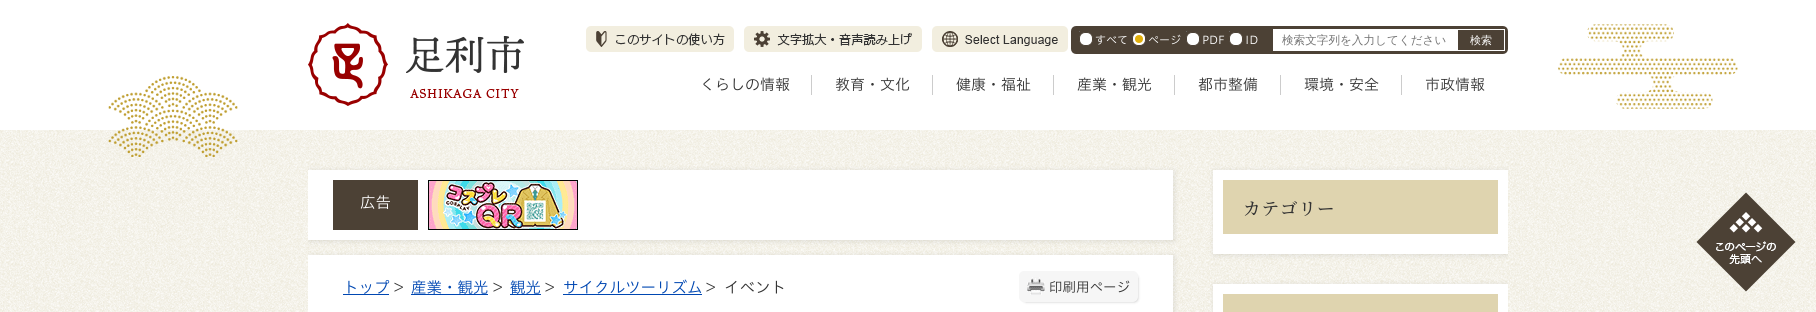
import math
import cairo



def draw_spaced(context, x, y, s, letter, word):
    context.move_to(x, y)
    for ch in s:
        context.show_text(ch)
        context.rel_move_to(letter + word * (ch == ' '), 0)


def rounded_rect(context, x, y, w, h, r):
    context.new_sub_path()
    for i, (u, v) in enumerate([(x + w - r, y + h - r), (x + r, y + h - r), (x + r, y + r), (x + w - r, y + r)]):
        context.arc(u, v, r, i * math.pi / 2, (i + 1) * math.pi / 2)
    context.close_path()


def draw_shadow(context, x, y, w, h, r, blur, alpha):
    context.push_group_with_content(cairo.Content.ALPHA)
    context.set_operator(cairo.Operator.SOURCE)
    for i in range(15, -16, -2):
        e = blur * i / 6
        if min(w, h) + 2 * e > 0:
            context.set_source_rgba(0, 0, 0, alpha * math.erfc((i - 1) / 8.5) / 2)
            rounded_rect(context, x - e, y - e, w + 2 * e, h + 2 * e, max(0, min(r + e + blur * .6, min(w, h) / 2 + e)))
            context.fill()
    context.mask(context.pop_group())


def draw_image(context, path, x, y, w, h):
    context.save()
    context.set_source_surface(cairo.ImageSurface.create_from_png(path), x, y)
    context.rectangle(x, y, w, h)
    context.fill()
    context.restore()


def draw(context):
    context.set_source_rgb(1, 1, 1)
    context.paint()
    draw_image(context, "images/1.png", 0, 130, 1816, 182)
    draw_image(context, "images/2.png", 308, 23, 216, 83)
    draw_image(context, "images/3.png", 586, 26, 148, 26)
    draw_image(context, "images/4.png", 744, 26, 178, 26)
    draw_image(context, "images/5.png", 932, 26, 136, 26)
    context.set_source_rgb(76 / 255, 65 / 255, 53 / 255)
    rounded_rect(context, 1072.5, 27.5, 434, 25, 3.5)
    context.fill_preserve()
    context.set_line_width(3)
    context.stroke()
    context.set_source_rgb(118 / 255, 118 / 255, 118 / 255)
    context.arc(1079.5, 31.5, 0.5, 0, 2 * math.pi)
    context.fill()
    context.set_source_rgb(1, 1, 1)
    rounded_rect(context, 1079.5, 32.5, 13, 13, 5.5)
    context.fill_preserve()
    context.set_source_rgb(76 / 255, 65 / 255, 53 / 255)
    context.set_line_width(1)
    context.stroke()
    context.set_source_rgb(1, 1, 1)
    rounded_rect(context, 1132.5, 32.5, 13, 13, 5.5)
    context.fill_preserve()
    context.set_source_rgb(76 / 255, 65 / 255, 53 / 255)
    context.stroke()
    context.set_source_rgb(225 / 255, 175 / 255, 12 / 255)
    context.arc(1139, 39, 4, 0, 2 * math.pi)
    context.fill()
    context.set_source_rgb(118 / 255, 118 / 255, 118 / 255)
    context.arc(1186.5, 31.5, 0.5, 0, 2 * math.pi)
    context.fill()
    context.set_source_rgb(1, 1, 1)
    rounded_rect(context, 1186.5, 32.5, 13, 13, 5.5)
    context.fill_preserve()
    context.set_source_rgb(76 / 255, 65 / 255, 53 / 255)
    context.stroke()
    context.set_source_rgb(118 / 255, 118 / 255, 118 / 255)
    context.arc(1229.5, 31.5, 0.5, 0, 2 * math.pi)
    context.fill()
    context.set_source_rgb(1, 1, 1)
    rounded_rect(context, 1229.5, 32.5, 13, 13, 5.5)
    context.fill_preserve()
    context.set_source_rgb(76 / 255, 65 / 255, 53 / 255)
    context.stroke()
    context.rectangle(1273.5, 29.5, 231, 21)
    context.set_source_rgb(1, 1, 1)
    context.stroke()
    context.rectangle(1274, 30, 184, 20)
    context.fill()
    context.set_source_rgb(204 / 255, 204 / 255, 204 / 255)
    context.rectangle(811, 75, 1, 20)
    context.fill()
    context.rectangle(932, 75, 1, 20)
    context.fill()
    context.rectangle(1053, 75, 1, 20)
    context.fill()
    context.rectangle(1174, 75, 1, 20)
    context.fill()
    context.rectangle(1280, 75, 1, 20)
    context.fill()
    context.rectangle(1401, 75, 1, 20)
    context.fill()
    draw_image(context, "images/6.png", 1558, 24, 180, 85)
    draw_image(context, "images/7.png", 108, 76, 130, 81)
    context.save()
    context.rectangle(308, 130, 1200, 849)
    context.clip()
    context.set_source_rgb(0, 0, 0)
    draw_shadow(context, 309, 171, 865, 70, 0, 3, 0.1)
    context.restore()
    context.set_source_rgb(1, 1, 1)
    context.rectangle(308, 170, 865, 70)
    context.fill()
    context.set_source_rgb(76 / 255, 65 / 255, 53 / 255)
    context.rectangle(333, 180, 85, 50)
    context.fill()
    draw_image(context, "images/8.png", 428, 180, 150, 50)
    context.save()
    context.rectangle(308, 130, 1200, 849)
    context.clip()
    context.set_source_rgb(0, 0, 0)
    draw_shadow(context, 309, 256, 865, 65, 0, 3, 0.1)
    context.restore()
    context.set_source_rgb(1, 1, 1)
    context.rectangle(308, 255, 865, 57)
    context.fill()
    context.set_source_rgb(0, 71 / 255, 178 / 255)
    context.rectangle(343, 294, 46, 1)
    context.fill()
    context.rectangle(411, 294, 77, 1)
    context.fill()
    context.rectangle(510, 294, 31, 1)
    context.fill()
    context.rectangle(563, 294, 139, 1)
    context.fill()
    context.set_source_rgb(0, 0, 0)
    draw_shadow(context, 1025, 277, 111, 23, 1, 2, 0.75)
    context.set_source_rgb(246 / 255, 246 / 255, 246 / 255)
    rounded_rect(context, 1019, 271, 119, 31, 5)
    context.fill()
    draw_image(context, "images/9.png", 1027, 277, 18, 18)
    context.save()
    context.rectangle(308, 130, 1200, 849)
    context.clip()
    context.set_source_rgb(0, 0, 0)
    draw_shadow(context, 1214, 171, 295, 84, 0, 3, 0.1)
    context.restore()
    context.set_source_rgb(1, 1, 1)
    context.rectangle(1213, 170, 295, 84)
    context.fill()
    context.set_source_rgb(223 / 255, 212 / 255, 175 / 255)
    context.rectangle(1223, 180, 275, 54)
    context.fill()
    context.save()
    context.rectangle(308, 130, 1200, 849)
    context.clip()
    context.set_source_rgb(0, 0, 0)
    draw_shadow(context, 1214, 285, 295, 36, 0, 3, 0.1)
    context.restore()
    context.set_source_rgb(1, 1, 1)
    context.rectangle(1213, 284, 295, 28)
    context.fill()
    context.set_source_rgb(223 / 255, 212 / 255, 175 / 255)
    context.rectangle(1223, 294, 275, 18)
    context.fill()
    draw_image(context, "images/10.png", 1696, 192, 100, 100)
    context.select_font_face("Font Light")
    context.set_font_size(11)
    context.set_source_rgb(1, 1, 1)
    context.move_to(1095, 44)
    context.show_text("すべて")
    context.move_to(1148, 44)
    context.show_text("ページ")
    context.move_to(1202, 44)
    context.show_text("PDF")
    context.move_to(1245, 44)
    context.show_text("ID")
    context.select_font_face("WenQuanYi Zen Hei Medium")
    context.set_font_size(11.6)
    context.set_source_rgb(117 / 255, 117 / 255, 117 / 255)
    context.move_to(1282, 44)
    context.show_text("検索文字列を入力してください")
    context.set_font_size(11)
    context.set_source_rgb(1, 1, 1)
    context.move_to(1470, 44)
    context.show_text("検索")
    context.select_font_face("Font Light")
    context.set_font_size(15)
    context.set_source_rgb(51 / 255, 51 / 255, 51 / 255)
    context.move_to(700, 90)
    context.show_text("くらしの情報")
    context.move_to(835, 90)
    context.show_text("教育・文化")
    context.move_to(956, 90)
    context.show_text("健康・福祉")
    context.move_to(1077, 90)
    context.show_text("産業・観光")
    context.move_to(1198, 90)
    context.show_text("都市整備")
    context.move_to(1304, 90)
    context.show_text("環境・安全")
    context.move_to(1425, 90)
    context.show_text("市政情報")
    context.set_font_size(15.5)
    context.set_source_rgb(1, 1, 1)
    context.move_to(360, 208)
    context.show_text("広告")
    context.set_source_rgb(0, 71 / 255, 178 / 255)
    context.move_to(343, 293)
    context.show_text("トップ")
    context.set_source_rgb(51 / 255, 51 / 255, 51 / 255)
    context.move_to(394, 293)
    context.show_text(">")
    context.set_source_rgb(0, 71 / 255, 178 / 255)
    context.move_to(411, 293)
    context.show_text("産業・観光")
    context.set_source_rgb(51 / 255, 51 / 255, 51 / 255)
    context.move_to(493, 293)
    context.show_text(">")
    context.set_source_rgb(0, 71 / 255, 178 / 255)
    context.move_to(510, 293)
    context.show_text("観光")
    context.set_source_rgb(51 / 255, 51 / 255, 51 / 255)
    context.move_to(545, 293)
    context.show_text(">")
    context.set_source_rgb(0, 71 / 255, 178 / 255)
    context.move_to(563, 293)
    context.show_text("サイクルツーリズム")
    context.set_source_rgb(51 / 255, 51 / 255, 51 / 255)
    context.move_to(706, 293)
    context.show_text(">")
    context.move_to(724, 293)
    context.show_text("イベント")
    context.set_font_size(13.5)
    context.move_to(1049, 292)
    context.show_text("印刷用ページ")
    context.select_font_face("Noto Serif JP Medium")
    context.set_font_size(17.5)
    draw_spaced(context, 1243, 215, "カテゴリー", 1, 0)


surface = cairo.ImageSurface(cairo.Format.RGB24, 1816, 312)
context = cairo.Context(surface)
options = cairo.FontOptions()
options.set_hint_metrics(cairo.HintMetrics.OFF)
options.set_hint_style(cairo.HintStyle.NONE)
context.set_font_options(options)
context.set_miter_limit(4)
draw(context)
surface.write_to_png("out.png")
